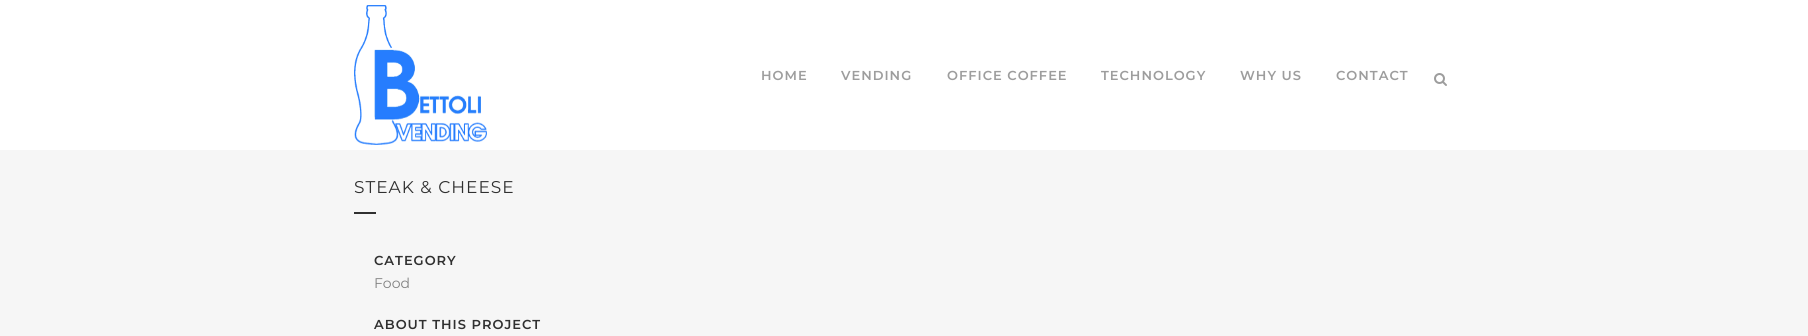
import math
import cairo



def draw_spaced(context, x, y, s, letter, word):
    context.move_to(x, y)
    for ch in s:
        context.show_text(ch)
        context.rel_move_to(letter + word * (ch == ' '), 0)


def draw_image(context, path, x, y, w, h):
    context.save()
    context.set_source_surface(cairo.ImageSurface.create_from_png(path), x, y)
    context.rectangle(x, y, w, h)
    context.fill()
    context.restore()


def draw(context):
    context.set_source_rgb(246 / 255, 246 / 255, 246 / 255)
    context.paint()
    context.set_source_rgb(1, 1, 1)
    context.rectangle(0, 0, 1808, 150)
    context.fill()
    draw_image(context, "images/1.png", 354, 5, 133, 140)
    draw_image(context, "images/2.png", 1434, 73, 13, 13)
    context.set_source_rgb(48 / 255, 48 / 255, 48 / 255)
    context.rectangle(354, 212, 22, 2)
    context.fill()
    context.select_font_face("Montserrat SemiBold")
    context.set_font_size(13)
    context.set_source_rgb(157 / 255, 157 / 255, 157 / 255)
    draw_spaced(context, 761, 80, "HOME", 1, 0)
    draw_spaced(context, 841, 80, "VENDING", 1, 0)
    draw_spaced(context, 947, 80, "OFFICE COFFEE", 1, 0)
    draw_spaced(context, 1101, 80, "TECHNOLOGY", 1, 0)
    draw_spaced(context, 1240, 80, "WHY US", 1, 0)
    draw_spaced(context, 1336, 80, "CONTACT", 1, 0)
    context.select_font_face("Montserrat")
    context.set_font_size(17)
    context.set_source_rgb(48 / 255, 48 / 255, 48 / 255)
    draw_spaced(context, 354, 193, "STEAK & CHEESE", 1, 0)
    context.select_font_face("Montserrat SemiBold")
    context.set_font_size(13)
    draw_spaced(context, 374, 265, "CATEGORY", 1, 0)
    context.select_font_face("Montserrat")
    context.set_font_size(14)
    context.set_source_rgb(129 / 255, 129 / 255, 129 / 255)
    context.move_to(374, 288)
    context.show_text("Food")
    context.select_font_face("Montserrat SemiBold")
    context.set_font_size(13)
    context.set_source_rgb(48 / 255, 48 / 255, 48 / 255)
    draw_spaced(context, 374, 329, "ABOUT THIS PROJECT", 1, 0)


surface = cairo.ImageSurface(cairo.Format.RGB24, 1808, 336)
context = cairo.Context(surface)
options = cairo.FontOptions()
options.set_hint_metrics(cairo.HintMetrics.OFF)
options.set_hint_style(cairo.HintStyle.NONE)
context.set_font_options(options)
context.set_miter_limit(4)
draw(context)
surface.write_to_png("out.png")
